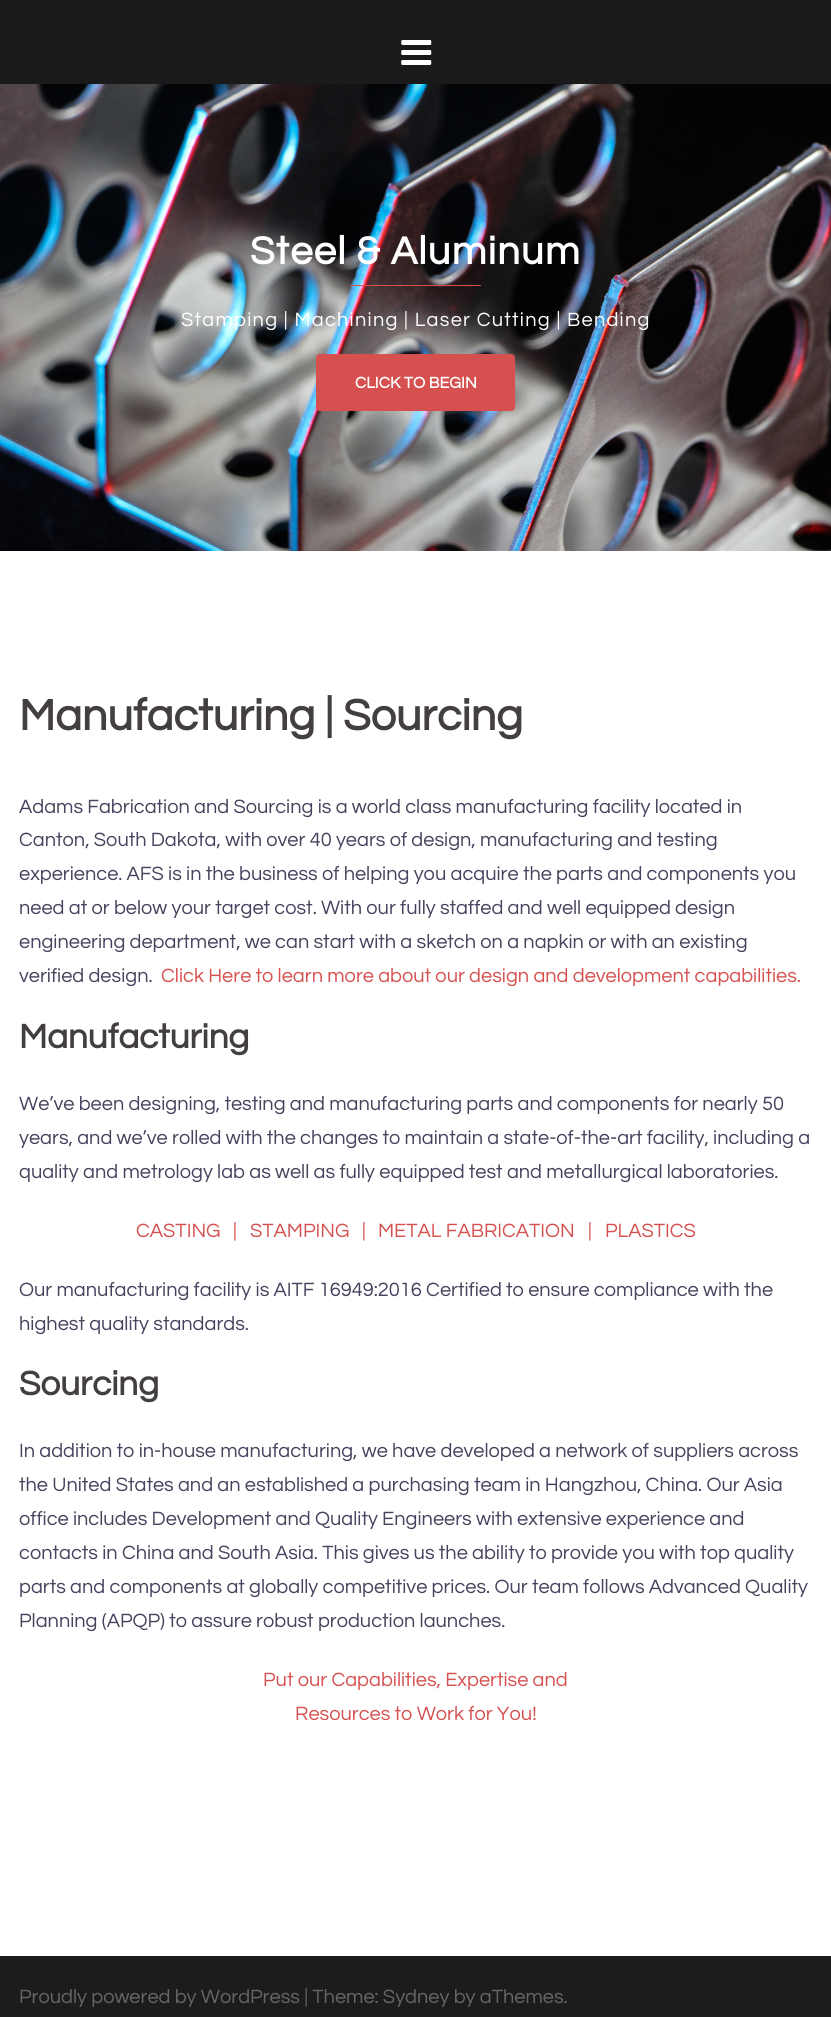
import math
import cairo



def draw_spaced(context, x, y, s, letter, word):
    context.move_to(x, y)
    for ch in s:
        context.show_text(ch)
        context.rel_move_to(letter + word * (ch == ' '), 0)


def rounded_rect(context, x, y, w, h, r):
    context.new_sub_path()
    for i, (u, v) in enumerate([(x + w - r, y + h - r), (x + r, y + h - r), (x + r, y + r), (x + w - r, y + r)]):
        context.arc(u, v, r, i * math.pi / 2, (i + 1) * math.pi / 2)
    context.close_path()


def draw_image(context, path, x, y, w, h):
    context.save()
    context.set_source_surface(cairo.ImageSurface.create_from_png(path), x, y)
    context.rectangle(x, y, w, h)
    context.fill()
    context.restore()


def draw(context):
    context.set_source_rgb(1, 1, 1)
    context.paint()
    context.set_source_rgb(26 / 255, 26 / 255, 26 / 255)
    context.rectangle(0, 0, 831, 84)
    context.fill()
    draw_image(context, "images/1.png", 401, 40, 31, 25)
    draw_image(context, "images/2.png", 0, 84, 831, 467)
    context.set_source_rgb(214 / 255, 80 / 255, 80 / 255)
    context.rectangle(350, 285, 131, 1)
    context.fill()
    rounded_rect(context, 316.5, 354.5, 198, 56, 3.5)
    context.fill_preserve()
    context.set_line_width(1)
    context.stroke()
    context.set_source_rgb(28 / 255, 28 / 255, 28 / 255)
    context.rectangle(0, 1956, 831, 61)
    context.fill()
    context.select_font_face("Questrial", cairo.FontSlant.NORMAL, cairo.FontWeight.BOLD)
    context.set_font_size(40)
    context.set_source_rgb(1, 1, 1)
    draw_spaced(context, 250, 264, "Steel & Aluminum", 1.25, 0)
    context.select_font_face("Questrial")
    context.set_font_size(20)
    draw_spaced(context, 181, 326, "Stamping | Machining | Laser Cutting | Bending", 1.25, 0)
    context.select_font_face("Questrial", cairo.FontSlant.NORMAL, cairo.FontWeight.BOLD)
    context.set_font_size(16.25)
    context.move_to(355, 388)
    context.show_text("CLICK TO BEGIN")
    context.set_font_size(45)
    context.set_source_rgb(68 / 255, 63 / 255, 63 / 255)
    context.move_to(19, 730)
    context.show_text("Manufacturing | Sourcing")
    context.select_font_face("Questrial")
    context.set_font_size(20)
    context.set_source_rgb(71 / 255, 66 / 255, 93 / 255)
    context.move_to(19, 813)
    context.show_text("Adams Fabrication and Sourcing is a world class manufacturing facility located in")
    context.move_to(19, 846)
    context.show_text("Canton, South Dakota, with over 40 years of design, manufacturing and testing")
    context.move_to(19, 880)
    context.show_text("experience. AFS is in the business of helping you acquire the parts and components you")
    context.move_to(19, 914)
    context.show_text("need at or below your target cost. With our fully staffed and well equipped design")
    context.move_to(19, 948)
    context.show_text("engineering department, we can start with a sketch on a napkin or with an existing")
    context.move_to(19, 982)
    context.show_text("verified design.")
    context.set_source_rgb(214 / 255, 80 / 255, 80 / 255)
    context.move_to(161, 982)
    context.show_text("Click Here to learn more about our design and development capabilities.")
    context.select_font_face("Questrial", cairo.FontSlant.NORMAL, cairo.FontWeight.BOLD)
    context.set_font_size(35)
    context.set_source_rgb(68 / 255, 63 / 255, 63 / 255)
    context.move_to(19, 1048)
    context.show_text("Manufacturing")
    context.select_font_face("Questrial")
    context.set_font_size(20)
    context.set_source_rgb(71 / 255, 66 / 255, 93 / 255)
    context.move_to(19, 1110)
    context.show_text("We’ve been designing, testing and manufacturing parts and components for nearly 50")
    context.move_to(19, 1144)
    context.show_text("years, and we’ve rolled with the changes to maintain a state-of-the-art facility, including a")
    context.move_to(19, 1178)
    context.show_text("quality and metrology lab as well as fully equipped test and metallurgical laboratories.")
    context.set_source_rgb(214 / 255, 80 / 255, 80 / 255)
    context.move_to(136, 1237)
    context.show_text("CASTING")
    context.move_to(233, 1237)
    context.show_text("|")
    context.move_to(250, 1237)
    context.show_text("STAMPING")
    context.move_to(362, 1237)
    context.show_text("|")
    context.move_to(378, 1237)
    context.show_text("METAL FABRICATION")
    context.move_to(588, 1237)
    context.show_text("|")
    context.move_to(605, 1237)
    context.show_text("PLASTICS")
    context.set_source_rgb(71 / 255, 66 / 255, 93 / 255)
    context.move_to(19, 1296)
    context.show_text("Our manufacturing facility is AITF 16949:2016 Certified to ensure compliance with the")
    context.move_to(19, 1330)
    context.show_text("highest quality standards.")
    context.select_font_face("Questrial", cairo.FontSlant.NORMAL, cairo.FontWeight.BOLD)
    context.set_font_size(35)
    context.set_source_rgb(68 / 255, 63 / 255, 63 / 255)
    context.move_to(19, 1395)
    context.show_text("Sourcing")
    context.select_font_face("Questrial")
    context.set_font_size(20)
    context.set_source_rgb(71 / 255, 66 / 255, 93 / 255)
    context.move_to(19, 1457)
    context.show_text("In addition to in-house manufacturing, we have developed a network of suppliers across")
    context.move_to(19, 1491)
    context.show_text("the United States and an established a purchasing team in Hangzhou, China. Our Asia")
    context.move_to(19, 1525)
    context.show_text("office includes Development and Quality Engineers with extensive experience and")
    context.move_to(19, 1559)
    context.show_text("contacts in China and South Asia. This gives us the ability to provide you with top quality")
    context.move_to(19, 1593)
    context.show_text("parts and components at globally competitive prices. Our team follows Advanced Quality")
    context.move_to(19, 1627)
    context.show_text("Planning (APQP) to assure robust production launches.")
    context.set_source_rgb(214 / 255, 80 / 255, 80 / 255)
    context.move_to(263, 1686)
    context.show_text("Put our Capabilities, Expertise and")
    context.move_to(295, 1720)
    context.show_text("Resources to Work for You!")
    context.set_source_rgb(102 / 255, 102 / 255, 102 / 255)
    context.move_to(19, 2003)
    context.show_text("Proudly powered by WordPress | Theme: Sydney by aThemes.")


surface = cairo.ImageSurface(cairo.Format.RGB24, 831, 2017)
context = cairo.Context(surface)
options = cairo.FontOptions()
options.set_hint_metrics(cairo.HintMetrics.OFF)
options.set_hint_style(cairo.HintStyle.NONE)
context.set_font_options(options)
context.set_miter_limit(4)
draw(context)
surface.write_to_png("out.png")
